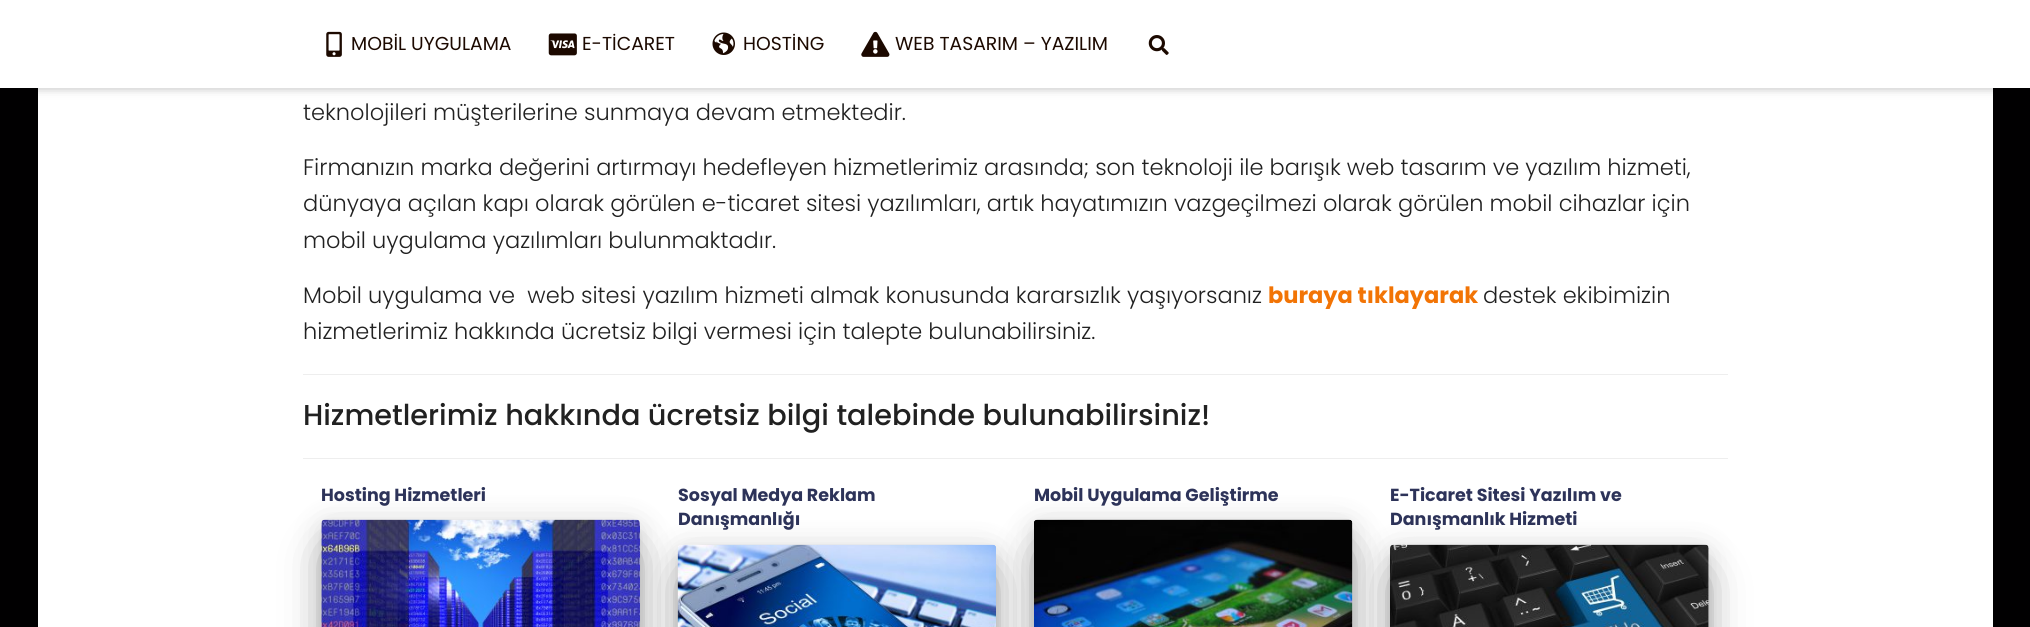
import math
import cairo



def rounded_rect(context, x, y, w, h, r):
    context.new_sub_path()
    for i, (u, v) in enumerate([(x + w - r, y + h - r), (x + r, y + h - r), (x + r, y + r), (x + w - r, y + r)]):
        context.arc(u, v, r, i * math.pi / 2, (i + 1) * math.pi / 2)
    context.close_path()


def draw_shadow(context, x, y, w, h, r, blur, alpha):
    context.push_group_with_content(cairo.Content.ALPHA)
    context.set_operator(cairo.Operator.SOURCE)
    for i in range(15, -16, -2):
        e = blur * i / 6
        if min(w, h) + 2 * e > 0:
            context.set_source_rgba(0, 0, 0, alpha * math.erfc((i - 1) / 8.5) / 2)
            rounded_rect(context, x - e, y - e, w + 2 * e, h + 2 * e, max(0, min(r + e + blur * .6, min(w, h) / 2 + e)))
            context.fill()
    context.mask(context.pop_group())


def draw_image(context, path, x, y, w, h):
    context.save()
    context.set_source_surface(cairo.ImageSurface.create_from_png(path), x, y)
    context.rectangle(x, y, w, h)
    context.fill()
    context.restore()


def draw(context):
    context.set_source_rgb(1 / 255, 0, 1 / 255)
    context.paint()
    context.set_source_rgb(1, 1, 1)
    context.rectangle(38, 88, 1955, 539)
    context.fill()
    context.set_source_rgb(0, 0, 0)
    draw_shadow(context, 3, 8, 2025, 82, 0, 3, 0.1)
    draw_shadow(context, 0, 1, 2030, 88, 0, 6, 0.12)
    context.set_source_rgb(1, 1, 1)
    context.rectangle(0, 0, 2030, 88)
    context.fill()
    draw_image(context, "images/1.png", 326, 31, 16, 26)
    draw_image(context, "images/2.png", 548, 33, 29, 23)
    draw_image(context, "images/3.png", 712, 32, 23, 23)
    draw_image(context, "images/4.png", 861, 31, 29, 26)
    draw_image(context, "images/5.png", 1148, 35, 21, 20)
    context.set_source_rgb(238 / 255, 238 / 255, 238 / 255)
    context.rectangle(303, 374, 1425, 1)
    context.fill()
    context.rectangle(303, 458, 1425, 1)
    context.fill()
    context.set_source_rgb(0, 0, 0)
    draw_shadow(context, 328, 536, 306, 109, 0, 6, 0.2)
    draw_shadow(context, 321, 525, 319, 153, 4, 15.5, 0.12)
    draw_shadow(context, 336, 555, 289, 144, 0, 24, 0.56)
    draw_image(context, "images/6.png", 321, 519, 319, 108)
    draw_shadow(context, 684, 561, 306, 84, 0, 6, 0.2)
    draw_shadow(context, 678, 550, 318, 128, 4, 15.5, 0.12)
    draw_shadow(context, 693, 580, 288, 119, 0, 24, 0.56)
    draw_image(context, "images/7.png", 677, 544, 319, 83)
    draw_shadow(context, 1040, 536, 306, 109, 0, 6, 0.2)
    draw_shadow(context, 1034, 525, 319, 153, 4, 15.5, 0.12)
    draw_shadow(context, 1049, 555, 289, 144, 0, 24, 0.56)
    draw_image(context, "images/8.png", 1034, 519, 319, 108)
    draw_shadow(context, 1396, 561, 307, 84, 0, 6, 0.2)
    draw_shadow(context, 1390, 550, 319, 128, 4, 15.5, 0.12)
    draw_shadow(context, 1405, 580, 289, 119, 0, 24, 0.56)
    draw_image(context, "images/9.png", 1390, 544, 319, 83)
    context.select_font_face("Poppins")
    context.set_font_size(18.75)
    context.set_source_rgb(28 / 255, 9 / 255, 0)
    context.move_to(351, 50)
    context.show_text("MOBİL UYGULAMA")
    context.move_to(582, 50)
    context.show_text("E-TİCARET")
    context.move_to(743, 50)
    context.show_text("HOSTİNG")
    context.move_to(895, 50)
    context.show_text("WEB TASARIM – YAZILIM")
    context.select_font_face("Poppins Light")
    context.set_font_size(22.5)
    context.set_source_rgb(33 / 255, 33 / 255, 33 / 255)
    context.move_to(303, 120)
    context.show_text("teknolojileri müşterilerine sunmaya devam etmektedir.")
    context.move_to(303, 175)
    context.show_text("Firmanızın marka değerini artırmayı hedefleyen hizmetlerimiz arasında; son teknoloji ile barışık web tasarım ve yazılım hizmeti,")
    context.move_to(303, 211)
    context.show_text("dünyaya açılan kapı olarak görülen e-ticaret sitesi yazılımları, artık hayatımızın vazgeçilmezi olarak görülen mobil cihazlar için")
    context.move_to(303, 248)
    context.show_text("mobil uygulama yazılımları bulunmaktadır.")
    context.move_to(303, 303)
    context.show_text("Mobil uygulama ve  web sitesi yazılım hizmeti almak konusunda kararsızlık yaşıyorsanız")
    context.select_font_face("Poppins", cairo.FontSlant.NORMAL, cairo.FontWeight.BOLD)
    context.set_source_rgb(242 / 255, 116 / 255, 5 / 255)
    context.move_to(1268, 303)
    context.show_text("buraya tıklayarak")
    context.select_font_face("Poppins Light")
    context.set_source_rgb(33 / 255, 33 / 255, 33 / 255)
    context.move_to(1483, 303)
    context.show_text("destek ekibimizin")
    context.move_to(303, 339)
    context.show_text("hizmetlerimiz hakkında ücretsiz bilgi vermesi için talepte bulunabilirsiniz.")
    context.select_font_face("Poppins Medium")
    context.set_font_size(28.75)
    context.move_to(303, 425)
    context.show_text("Hizmetlerimiz hakkında ücretsiz bilgi talebinde bulunabilirsiniz!")
    context.select_font_face("Poppins", cairo.FontSlant.NORMAL, cairo.FontWeight.BOLD)
    context.set_font_size(17.5)
    context.set_source_rgb(45 / 255, 51 / 255, 89 / 255)
    context.move_to(321, 501)
    context.show_text("Hosting Hizmetleri")
    context.move_to(678, 501)
    context.show_text("Sosyal Medya Reklam")
    context.move_to(678, 525)
    context.show_text("Danışmanlığı")
    context.move_to(1034, 501)
    context.show_text("Mobil Uygulama Geliştirme")
    context.move_to(1390, 501)
    context.show_text("E-Ticaret Sitesi Yazılım ve")
    context.move_to(1390, 525)
    context.show_text("Danışmanlık Hizmeti")


surface = cairo.ImageSurface(cairo.Format.RGB24, 2030, 627)
context = cairo.Context(surface)
options = cairo.FontOptions()
options.set_hint_metrics(cairo.HintMetrics.OFF)
options.set_hint_style(cairo.HintStyle.NONE)
context.set_font_options(options)
context.set_miter_limit(4)
draw(context)
surface.write_to_png("out.png")
